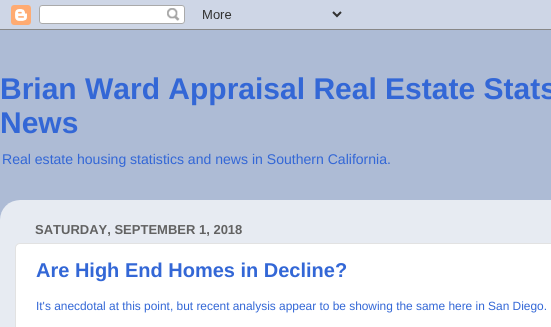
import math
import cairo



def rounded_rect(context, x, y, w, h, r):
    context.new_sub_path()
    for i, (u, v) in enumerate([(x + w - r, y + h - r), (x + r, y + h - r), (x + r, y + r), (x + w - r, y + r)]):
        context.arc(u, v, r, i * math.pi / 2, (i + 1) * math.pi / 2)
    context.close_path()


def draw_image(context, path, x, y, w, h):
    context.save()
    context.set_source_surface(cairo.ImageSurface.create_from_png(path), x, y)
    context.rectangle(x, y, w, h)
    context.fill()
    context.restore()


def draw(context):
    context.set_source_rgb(173 / 255, 187 / 255, 213 / 255)
    context.paint()
    draw_image(context, "images/1.png", 0, 0, 551, 30)
    draw_image(context, "images/2.png", 0, 200, 551, 127)
    context.set_source_rgb(1, 1, 1)
    rounded_rect(context, 15.5, 243.5, 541, 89, 4.5)
    context.fill_preserve()
    context.set_source_rgb(226 / 255, 226 / 255, 226 / 255)
    context.set_line_width(1)
    context.stroke()
    context.select_font_face("Arimo", cairo.FontSlant.NORMAL, cairo.FontWeight.BOLD)
    context.set_font_size(30)
    context.set_source_rgb(51 / 255, 103 / 255, 214 / 255)
    context.move_to(0, 99)
    context.show_text("Brian Ward Appraisal Real Estate Stats")
    context.move_to(0, 133)
    context.show_text("News")
    context.select_font_face("Arimo")
    context.set_font_size(14.05)
    context.move_to(2, 164)
    context.show_text("Real estate housing statistics and news in Southern California.")
    context.select_font_face("Liberation Sans", cairo.FontSlant.NORMAL, cairo.FontWeight.BOLD)
    context.set_font_size(13)
    context.set_source_rgb(98 / 255, 98 / 255, 98 / 255)
    context.move_to(35, 234)
    context.show_text("SATURDAY, SEPTEMBER 1, 2018")
    context.set_font_size(20)
    context.set_source_rgb(51 / 255, 103 / 255, 214 / 255)
    context.move_to(36, 277)
    context.show_text("Are High End Homes in Decline?")
    context.select_font_face("Arimo")
    context.set_font_size(11.9)
    context.move_to(36, 310)
    context.show_text("It's anecdotal at this point, but recent analysis appear to be showing the same here in San Diego.")


surface = cairo.ImageSurface(cairo.Format.RGB24, 551, 327)
context = cairo.Context(surface)
options = cairo.FontOptions()
options.set_hint_metrics(cairo.HintMetrics.OFF)
options.set_hint_style(cairo.HintStyle.NONE)
context.set_font_options(options)
context.set_miter_limit(4)
draw(context)
surface.write_to_png("out.png")
